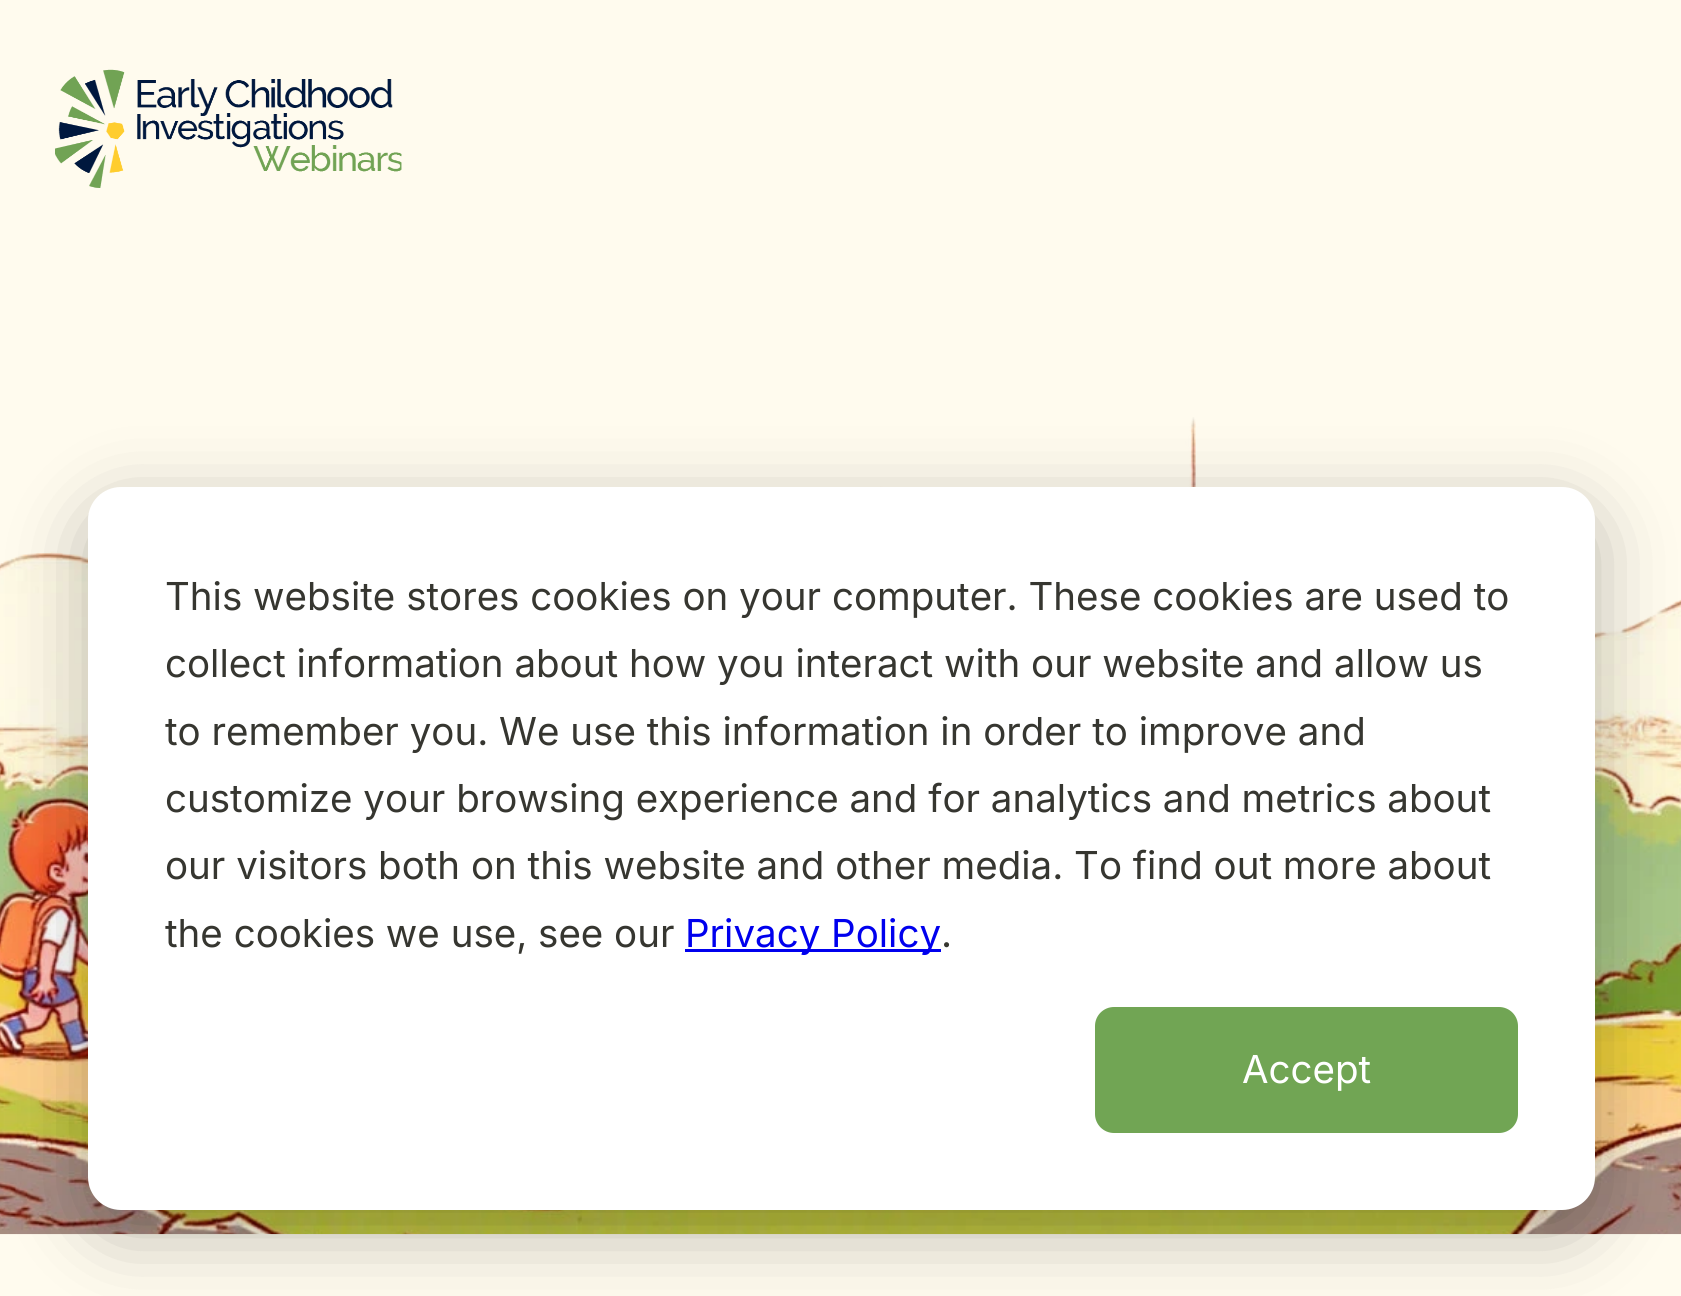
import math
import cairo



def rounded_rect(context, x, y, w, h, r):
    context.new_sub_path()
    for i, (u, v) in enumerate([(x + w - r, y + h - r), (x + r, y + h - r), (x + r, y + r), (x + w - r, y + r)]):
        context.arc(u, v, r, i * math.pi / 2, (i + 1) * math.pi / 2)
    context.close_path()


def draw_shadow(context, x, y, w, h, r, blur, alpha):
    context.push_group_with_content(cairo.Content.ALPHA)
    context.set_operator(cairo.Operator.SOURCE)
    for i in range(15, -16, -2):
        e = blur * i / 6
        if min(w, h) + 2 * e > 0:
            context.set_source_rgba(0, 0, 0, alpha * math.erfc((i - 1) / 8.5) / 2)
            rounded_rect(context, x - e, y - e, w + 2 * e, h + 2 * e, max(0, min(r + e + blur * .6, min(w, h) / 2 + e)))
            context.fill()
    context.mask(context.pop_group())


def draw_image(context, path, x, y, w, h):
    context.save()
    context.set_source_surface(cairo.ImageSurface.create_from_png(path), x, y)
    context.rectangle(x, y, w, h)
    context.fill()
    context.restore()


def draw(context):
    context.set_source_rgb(1, 251 / 255, 238 / 255)
    context.paint()
    draw_image(context, "images/1.png", 55, 69, 347, 119)
    draw_image(context, "images/2.png", 0, 417, 1681, 818)
    context.set_source_rgb(0, 0, 0)
    draw_shadow(context, 88, 509, 1507, 723, 33, 38.5, 0.28)
    context.set_source_rgb(1, 1, 1)
    rounded_rect(context, 88, 487, 1507, 723, 33)
    context.fill()
    context.set_source_rgb(0, 0, 238 / 255)
    context.rectangle(685, 949, 256, 3)
    context.fill()
    context.set_source_rgb(113 / 255, 165 / 255, 84 / 255)
    rounded_rect(context, 1096.5, 1008.5, 420, 123, 17.5)
    context.fill_preserve()
    context.set_line_width(3)
    context.stroke()
    context.select_font_face("Inter")
    context.set_font_size(38.5)
    context.set_source_rgb(54 / 255, 54 / 255, 48 / 255)
    context.move_to(165, 610)
    context.show_text("This website stores cookies on your computer. These cookies are used to")
    context.move_to(165, 677)
    context.show_text("collect information about how you interact with our website and allow us")
    context.move_to(165, 745)
    context.show_text("to remember you. We use this information in order to improve and")
    context.move_to(165, 812)
    context.show_text("customize your browsing experience and for analytics and metrics about")
    context.move_to(165, 879)
    context.show_text("our visitors both on this website and other media. To find out more about")
    context.move_to(165, 947)
    context.show_text("the cookies we use, see our")
    context.set_source_rgb(0, 0, 238 / 255)
    context.move_to(685, 947)
    context.show_text("Privacy Policy")
    context.set_source_rgb(54 / 255, 54 / 255, 48 / 255)
    context.move_to(941, 947)
    context.show_text(".")
    context.set_source_rgb(1, 1, 1)
    context.move_to(1242, 1083)
    context.show_text("Accept")


surface = cairo.ImageSurface(cairo.Format.RGB24, 1681, 1296)
context = cairo.Context(surface)
options = cairo.FontOptions()
options.set_hint_metrics(cairo.HintMetrics.OFF)
options.set_hint_style(cairo.HintStyle.NONE)
context.set_font_options(options)
context.set_miter_limit(4)
draw(context)
surface.write_to_png("out.png")
